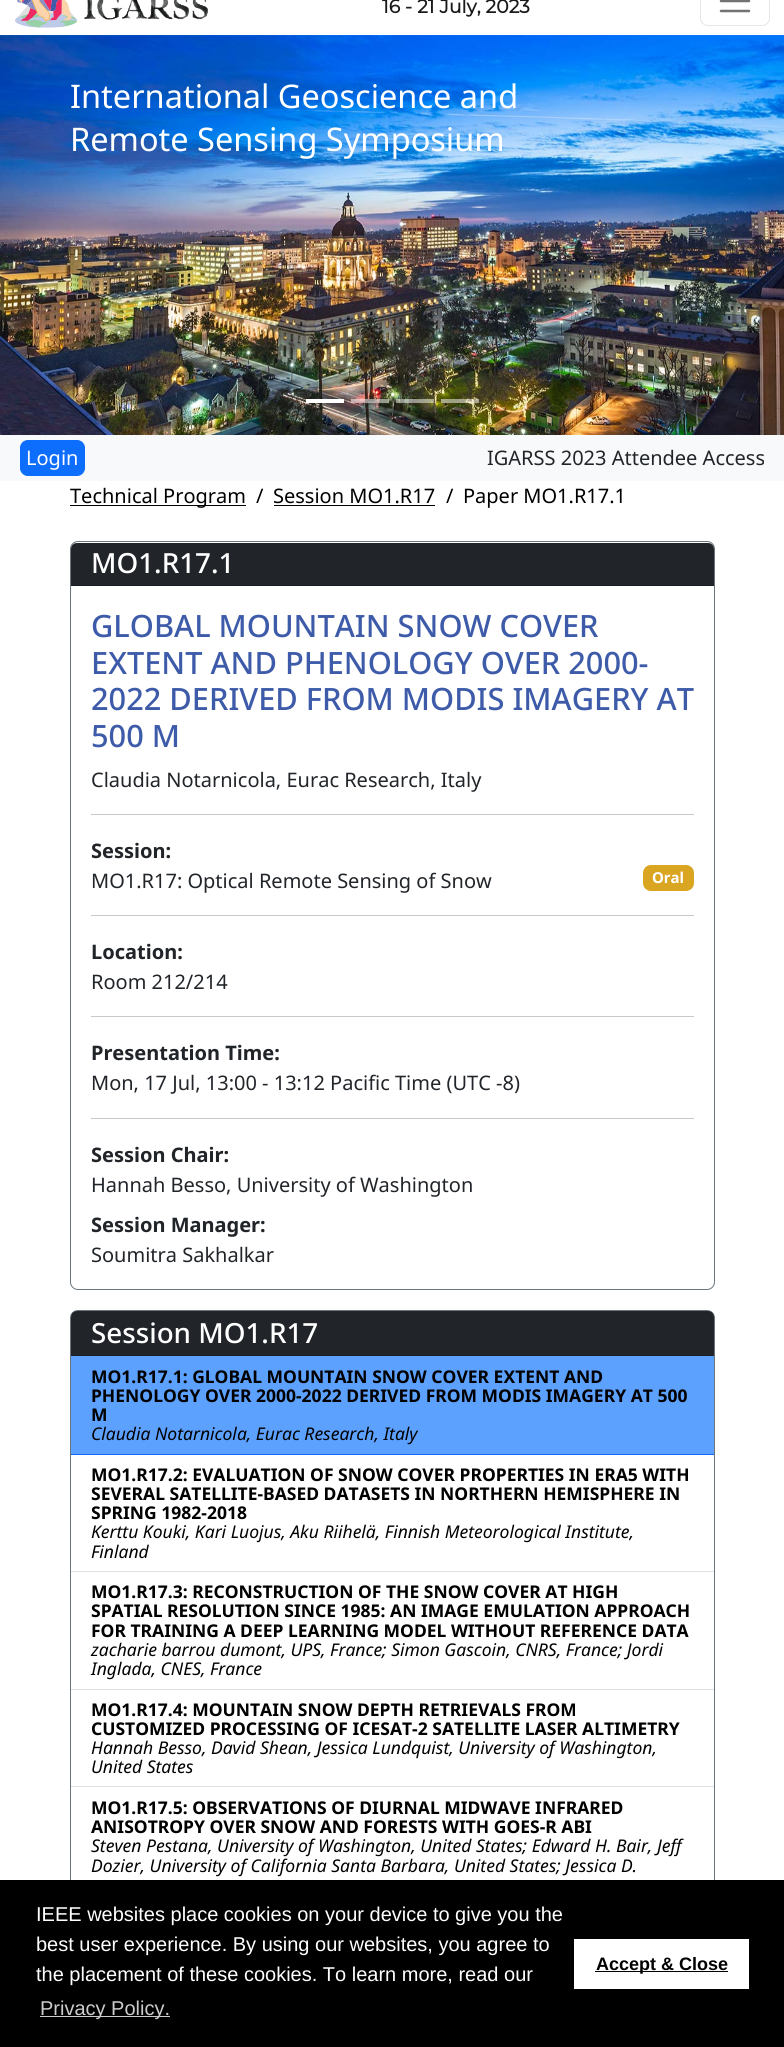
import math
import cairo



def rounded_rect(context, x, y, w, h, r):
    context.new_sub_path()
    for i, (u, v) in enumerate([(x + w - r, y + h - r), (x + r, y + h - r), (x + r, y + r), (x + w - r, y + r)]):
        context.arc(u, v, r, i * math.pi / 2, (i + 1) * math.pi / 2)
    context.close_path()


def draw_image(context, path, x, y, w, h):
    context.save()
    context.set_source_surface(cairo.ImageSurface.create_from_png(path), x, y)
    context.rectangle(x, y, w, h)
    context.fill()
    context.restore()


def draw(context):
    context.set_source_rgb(1, 1, 1)
    context.paint()
    draw_image(context, "images/1.png", 15, 0, 193, 28)
    rounded_rect(context, 700.5, -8.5, 69, 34, 7.5)
    context.set_source_rgb(230 / 255, 230 / 255, 230 / 255)
    context.set_line_width(1)
    context.stroke()
    context.new_path()
    context.move_to(721, -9)
    context.line_to(749, -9)
    context.move_to(721, 1)
    context.line_to(749, 1)
    context.move_to(721, 11)
    context.line_to(749, 11)
    context.set_source_rgb(115 / 255, 115 / 255, 115 / 255)
    context.set_line_width(2.5)
    context.set_line_cap(cairo.LineCap.ROUND)
    context.stroke()
    draw_image(context, "images/2.png", 0, 35, 784, 400)
    context.set_source_rgb(1, 1, 1)
    context.rectangle(306, 399, 38, 4)
    context.fill()
    context.set_source_rgba(1, 1, 1, 0.5)
    context.rectangle(351, 399, 38, 4)
    context.fill()
    context.rectangle(396, 399, 38, 4)
    context.fill()
    context.rectangle(441, 399, 38, 4)
    context.fill()
    context.set_source_rgb(248 / 255, 249 / 255, 250 / 255)
    context.rectangle(0, 435, 784, 46)
    context.fill()
    context.set_source_rgb(13 / 255, 110 / 255, 253 / 255)
    rounded_rect(context, 20.5, 440.5, 64, 35, 7.5)
    context.fill_preserve()
    context.set_line_width(1)
    context.set_line_cap(cairo.LineCap.BUTT)
    context.stroke()
    context.set_source_rgb(0, 0, 0)
    context.rectangle(70, 505, 176, 1)
    context.fill()
    context.rectangle(274, 505, 161, 1)
    context.fill()
    rounded_rect(context, 70.5, 541.5, 644, 748, 7.5)
    context.set_source_rgb(108 / 255, 117 / 255, 125 / 255)
    context.stroke()
    context.set_source_rgb(33 / 255, 37 / 255, 41 / 255)
    context.new_path()
    context.move_to(77, 543)
    context.line_to(708, 543)
    context.curve_to(711.5, 543, 714, 545.5, 714, 549)
    context.line_to(714, 586)
    context.line_to(71, 586)
    context.line_to(71, 549)
    context.curve_to(71, 545.5, 73.5, 543, 77, 543)
    context.close_path()
    context.fill()
    context.set_source_rgb(27 / 255, 30 / 255, 34 / 255)
    context.rectangle(71, 585, 643, 1)
    context.fill()
    context.set_source_rgb(200 / 255, 201 / 255, 202 / 255)
    context.rectangle(91, 814, 603, 1)
    context.fill()
    context.set_source_rgb(218 / 255, 165 / 255, 32 / 255)
    rounded_rect(context, 643, 865, 51, 26, 8)
    context.fill()
    context.set_source_rgb(200 / 255, 201 / 255, 202 / 255)
    context.rectangle(91, 915, 603, 1)
    context.fill()
    context.rectangle(91, 1016, 603, 1)
    context.fill()
    context.rectangle(91, 1118, 603, 1)
    context.fill()
    rounded_rect(context, 70.5, 1310.5, 644, 594, 7.5)
    context.set_source_rgb(108 / 255, 117 / 255, 125 / 255)
    context.stroke()
    context.set_source_rgb(33 / 255, 37 / 255, 41 / 255)
    context.new_path()
    context.move_to(77, 1311)
    context.line_to(708, 1311)
    context.curve_to(711.5, 1311, 714, 1313.5, 714, 1317)
    context.line_to(714, 1356)
    context.line_to(71, 1356)
    context.line_to(71, 1317)
    context.curve_to(71, 1313.5, 73.5, 1311, 77, 1311)
    context.close_path()
    context.fill()
    context.set_source_rgb(27 / 255, 30 / 255, 34 / 255)
    context.rectangle(71, 1355, 643, 1)
    context.fill()
    context.set_source_rgb(93 / 255, 161 / 255, 1)
    context.rectangle(71, 1356, 643, 98)
    context.fill()
    context.set_source_rgb(13 / 255, 110 / 255, 253 / 255)
    context.rectangle(71, 1454, 643, 1)
    context.fill()
    context.set_source_rgb(223 / 255, 223 / 255, 223 / 255)
    context.rectangle(71, 1571, 643, 1)
    context.fill()
    context.rectangle(71, 1689, 643, 1)
    context.fill()
    context.rectangle(71, 1786, 643, 1)
    context.fill()
    context.set_source_rgb(0, 0, 0)
    context.rectangle(0, 1880, 784, 167)
    context.fill()
    context.set_source_rgb(204 / 255, 204 / 255, 204 / 255)
    context.rectangle(40, 2016, 130, 1)
    context.fill()
    context.set_source_rgb(1, 1, 1)
    context.rectangle(574, 1939, 175, 50)
    context.fill()
    context.set_source_rgb(0, 0, 0)
    context.rectangle(595, 1971, 133, 1)
    context.fill()
    context.select_font_face("Montserrat", cairo.FontSlant.NORMAL, cairo.FontWeight.BOLD)
    context.set_font_size(18.75)
    context.set_source_rgb(26 / 255, 26 / 255, 26 / 255)
    context.move_to(382, 13)
    context.show_text("16 - 21 July, 2023")
    context.select_font_face("Noto Sans")
    context.set_font_size(32.5)
    context.set_source_rgb(1, 1, 1)
    context.move_to(70, 108)
    context.show_text("International Geoscience and")
    context.move_to(70, 151)
    context.show_text("Remote Sensing Symposium")
    context.set_font_size(20)
    context.move_to(26, 465)
    context.show_text("Login")
    context.set_source_rgb(33 / 255, 37 / 255, 41 / 255)
    context.move_to(487, 465)
    context.show_text("IGARSS 2023 Attendee Access")
    context.set_source_rgb(0, 0, 0)
    context.move_to(70, 503)
    context.show_text("Technical Program")
    context.move_to(256, 503)
    context.show_text("/")
    context.move_to(273, 503)
    context.show_text("Session MO1.R17")
    context.move_to(446, 503)
    context.show_text("/")
    context.move_to(463, 503)
    context.show_text("Paper MO1.R17.1")
    context.select_font_face("Noto Sans Medium")
    context.set_font_size(27.75)
    context.set_source_rgb(1, 1, 1)
    context.move_to(91, 573)
    context.show_text("MO1.R17.1")
    context.set_font_size(30.75)
    context.set_source_rgb(61 / 255, 91 / 255, 169 / 255)
    context.move_to(91, 637)
    context.show_text("GLOBAL MOUNTAIN SNOW COVER")
    context.move_to(91, 674)
    context.show_text("EXTENT AND PHENOLOGY OVER 2000-")
    context.move_to(91, 710)
    context.show_text("2022 DERIVED FROM MODIS IMAGERY AT")
    context.move_to(91, 747)
    context.show_text("500 M")
    context.select_font_face("Noto Sans")
    context.set_font_size(20)
    context.set_source_rgb(33 / 255, 37 / 255, 41 / 255)
    context.move_to(91, 787)
    context.show_text("Claudia Notarnicola, Eurac Research, Italy")
    context.select_font_face("Noto Sans", cairo.FontSlant.NORMAL, cairo.FontWeight.BOLD)
    context.move_to(91, 858)
    context.show_text("Session:")
    context.select_font_face("Noto Sans")
    context.move_to(91, 888)
    context.show_text("MO1.R17: Optical Remote Sensing of Snow")
    context.select_font_face("Noto Sans", cairo.FontSlant.NORMAL, cairo.FontWeight.BOLD)
    context.set_font_size(15)
    context.set_source_rgb(1, 1, 1)
    context.move_to(652, 883)
    context.show_text("Oral")
    context.set_font_size(20)
    context.set_source_rgb(33 / 255, 37 / 255, 41 / 255)
    context.move_to(91, 959)
    context.show_text("Location:")
    context.select_font_face("Noto Sans")
    context.move_to(91, 989)
    context.show_text("Room 212/214")
    context.select_font_face("Noto Sans", cairo.FontSlant.NORMAL, cairo.FontWeight.BOLD)
    context.move_to(91, 1060)
    context.show_text("Presentation Time:")
    context.select_font_face("Noto Sans")
    context.move_to(91, 1090)
    context.show_text("Mon, 17 Jul, 13:00 - 13:12 Pacific Time (UTC -8)")
    context.select_font_face("Noto Sans", cairo.FontSlant.NORMAL, cairo.FontWeight.BOLD)
    context.move_to(91, 1162)
    context.show_text("Session Chair:")
    context.select_font_face("Noto Sans")
    context.move_to(91, 1192)
    context.show_text("Hannah Besso, University of Washington")
    context.select_font_face("Noto Sans", cairo.FontSlant.NORMAL, cairo.FontWeight.BOLD)
    context.move_to(91, 1232)
    context.show_text("Session Manager:")
    context.select_font_face("Noto Sans")
    context.move_to(91, 1262)
    context.show_text("Soumitra Sakhalkar")
    context.select_font_face("Noto Sans Medium")
    context.set_font_size(27.75)
    context.set_source_rgb(1, 1, 1)
    context.move_to(91, 1343)
    context.show_text("Session MO1.R17")
    context.select_font_face("Noto Sans", cairo.FontSlant.NORMAL, cairo.FontWeight.BOLD)
    context.set_font_size(17.5)
    context.set_source_rgb(0, 0, 0)
    context.move_to(91, 1383)
    context.show_text("MO1.R17.1: GLOBAL MOUNTAIN SNOW COVER EXTENT AND")
    context.move_to(91, 1402)
    context.show_text("PHENOLOGY OVER 2000-2022 DERIVED FROM MODIS IMAGERY AT 500")
    context.move_to(91, 1421)
    context.show_text("M")
    context.select_font_face("Noto Sans", cairo.FontSlant.ITALIC)
    context.move_to(91, 1440)
    context.show_text("Claudia Notarnicola, Eurac Research, Italy")
    context.select_font_face("Noto Sans", cairo.FontSlant.NORMAL, cairo.FontWeight.BOLD)
    context.move_to(91, 1481)
    context.show_text("MO1.R17.2: EVALUATION OF SNOW COVER PROPERTIES IN ERA5 WITH")
    context.move_to(91, 1500)
    context.show_text("SEVERAL SATELLITE-BASED DATASETS IN NORTHERN HEMISPHERE IN")
    context.move_to(91, 1519)
    context.show_text("SPRING 1982-2018")
    context.select_font_face("Noto Sans", cairo.FontSlant.ITALIC)
    context.move_to(91, 1538)
    context.show_text("Kerttu Kouki, Kari Luojus, Aku Riihelä, Finnish Meteorological Institute,")
    context.move_to(91, 1558)
    context.show_text("Finland")
    context.select_font_face("Noto Sans", cairo.FontSlant.NORMAL, cairo.FontWeight.BOLD)
    context.move_to(91, 1598)
    context.show_text("MO1.R17.3: RECONSTRUCTION OF THE SNOW COVER AT HIGH")
    context.move_to(91, 1617)
    context.show_text("SPATIAL RESOLUTION SINCE 1985: AN IMAGE EMULATION APPROACH")
    context.move_to(91, 1637)
    context.show_text("FOR TRAINING A DEEP LEARNING MODEL WITHOUT REFERENCE DATA")
    context.select_font_face("Noto Sans", cairo.FontSlant.ITALIC)
    context.move_to(91, 1656)
    context.show_text("zacharie barrou dumont, UPS, France; Simon Gascoin, CNRS, France; Jordi")
    context.move_to(91, 1675)
    context.show_text("Inglada, CNES, France")
    context.select_font_face("Noto Sans", cairo.FontSlant.NORMAL, cairo.FontWeight.BOLD)
    context.move_to(91, 1716)
    context.show_text("MO1.R17.4: MOUNTAIN SNOW DEPTH RETRIEVALS FROM")
    context.move_to(91, 1735)
    context.show_text("CUSTOMIZED PROCESSING OF ICESAT-2 SATELLITE LASER ALTIMETRY")
    context.select_font_face("Noto Sans", cairo.FontSlant.ITALIC)
    context.move_to(91, 1754)
    context.show_text("Hannah Besso, David Shean, Jessica Lundquist, University of Washington,")
    context.move_to(91, 1773)
    context.show_text("United States")
    context.select_font_face("Noto Sans", cairo.FontSlant.NORMAL, cairo.FontWeight.BOLD)
    context.move_to(91, 1814)
    context.show_text("MO1.R17.5: OBSERVATIONS OF DIURNAL MIDWAVE INFRARED")
    context.move_to(91, 1833)
    context.show_text("ANISOTROPY OVER SNOW AND FORESTS WITH GOES-R ABI")
    context.select_font_face("Noto Sans", cairo.FontSlant.ITALIC)
    context.move_to(91, 1852)
    context.show_text("Steven Pestana, University of Washington, United States; Edward H. Bair, Jeff")
    context.move_to(91, 1872)
    context.show_text("Dozier, University of California Santa Barbara, United States; Jessica D.")
    context.select_font_face("Liberation Sans")
    context.set_font_size(20)
    context.set_source_rgb(1, 1, 1)
    context.move_to(36, 1921)
    context.show_text("IEEE websites place cookies on your device to give you the")
    context.move_to(36, 1951)
    context.show_text("best user experience. By using our websites, you agree to")
    context.move_to(36, 1981)
    context.show_text("the placement of these cookies. To learn more, read our")
    context.set_source_rgb(204 / 255, 204 / 255, 204 / 255)
    context.move_to(40, 2015)
    context.show_text("Privacy Policy.")
    context.select_font_face("Liberation Sans", cairo.FontSlant.NORMAL, cairo.FontWeight.BOLD)
    context.set_font_size(18)
    context.set_source_rgb(0, 0, 0)
    context.move_to(596, 1970)
    context.show_text("Accept & Close")


surface = cairo.ImageSurface(cairo.Format.RGB24, 784, 2047)
context = cairo.Context(surface)
options = cairo.FontOptions()
options.set_hint_metrics(cairo.HintMetrics.OFF)
options.set_hint_style(cairo.HintStyle.NONE)
context.set_font_options(options)
context.set_miter_limit(4)
draw(context)
surface.write_to_png("out.png")
